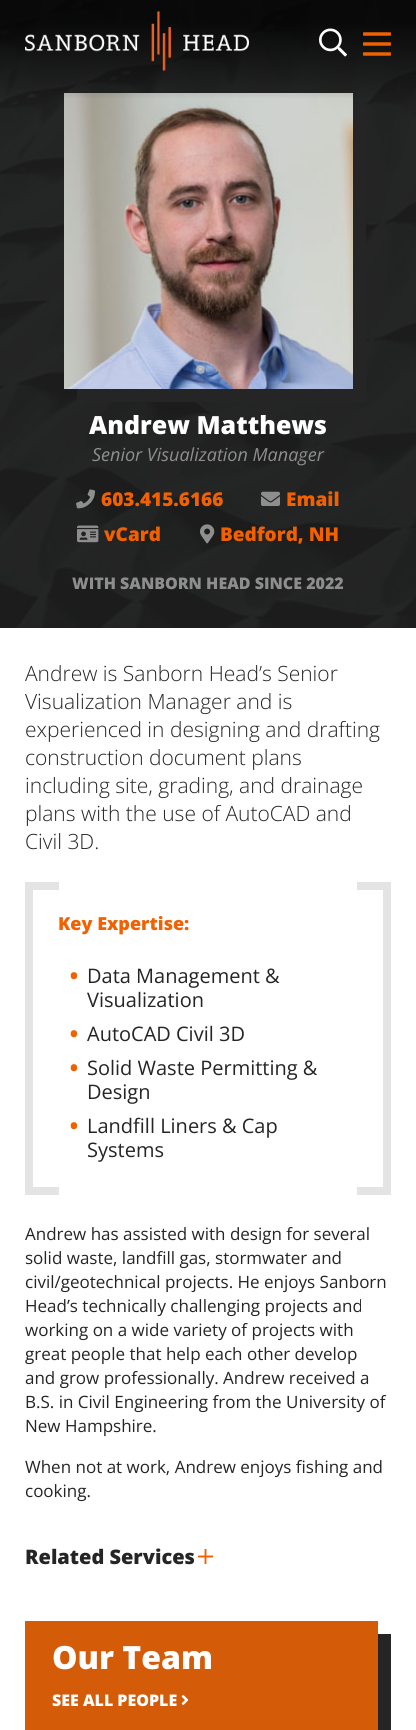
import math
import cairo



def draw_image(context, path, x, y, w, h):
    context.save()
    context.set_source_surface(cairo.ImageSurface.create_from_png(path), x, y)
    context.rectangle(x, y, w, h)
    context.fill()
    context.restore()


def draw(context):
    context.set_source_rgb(1, 1, 1)
    context.paint()
    draw_image(context, "images/4.png", 0, 0, 416, 628)
    context.set_source_rgb(37 / 255, 37 / 255, 37 / 255)
    context.new_path()
    context.move_to(77, 389)
    context.line_to(77, 402)
    context.line_to(366, 402)
    context.line_to(366, 106)
    context.line_to(353, 106)
    context.line_to(353, 389)
    context.close_path()
    context.fill()
    draw_image(context, "images/5.png", 64, 93, 289, 296)
    gradient = cairo.LinearGradient(208, 0, 208, 100)
    gradient.add_color_stop_rgba(0, 0, 0, 0, 0.75)
    gradient.add_color_stop_rgba(0.21, 0, 0, 0, 0.75)
    gradient.add_color_stop_rgba(1, 0, 0, 0, 0)
    context.set_source(gradient)
    context.rectangle(0, 0, 416, 98)
    context.fill()
    draw_image(context, "images/1.png", 25, 11, 224, 60)
    draw_image(context, "images/2.png", 319, 28, 28, 29)
    draw_image(context, "images/3.png", 363, 32, 28, 24)
    draw_image(context, "images/6.png", 76, 489, 19, 20)
    draw_image(context, "images/7.png", 261, 491, 19, 15)
    draw_image(context, "images/8.png", 77, 525, 22, 18)
    draw_image(context, "images/9.png", 200, 524, 15, 20)
    context.rectangle(29, 886, 358, 305)
    context.set_source_rgb(228 / 255, 228 / 255, 228 / 255)
    context.set_line_width(8)
    context.stroke()
    context.set_source_rgb(1, 1, 1)
    context.rectangle(59, 882, 298, 8)
    context.fill()
    context.rectangle(59, 1187, 298, 8)
    context.fill()
    draw_image(context, "images/10.png", 198, 1549, 15, 15)
    context.set_source_rgb(37 / 255, 37 / 255, 37 / 255)
    context.new_path()
    context.move_to(38, 1730)
    context.line_to(38, 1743)
    context.line_to(391, 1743)
    context.line_to(391, 1634)
    context.line_to(378, 1634)
    context.line_to(378, 1730)
    context.close_path()
    context.fill()
    context.set_source_rgb(212 / 255, 91 / 255, 8 / 255)
    context.rectangle(25, 1621, 353, 109)
    context.fill()
    draw_image(context, "images/11.png", 181, 1695, 8, 10)
    context.select_font_face("Open Sans ExtraBold")
    context.set_font_size(25)
    context.set_source_rgb(1, 1, 1)
    context.move_to(89, 434)
    context.show_text("Andrew Matthews")
    context.select_font_face("Open Sans", cairo.FontSlant.ITALIC)
    context.set_font_size(18)
    context.set_source_rgb(142 / 255, 142 / 255, 142 / 255)
    context.move_to(92, 461)
    context.show_text("Senior Visualization Manager")
    context.select_font_face("Open Sans ExtraBold")
    context.set_font_size(19)
    context.set_source_rgb(242 / 255, 97 / 255, 1 / 255)
    context.move_to(101, 506)
    context.show_text("603.415.6166")
    context.move_to(286, 506)
    context.show_text("Email")
    context.move_to(104, 541)
    context.show_text("vCard")
    context.move_to(220, 541)
    context.show_text("Bedford, NH")
    context.set_font_size(16)
    context.set_source_rgb(142 / 255, 142 / 255, 142 / 255)
    context.move_to(72, 589)
    context.show_text("WITH SANBORN HEAD SINCE 2022")
    context.select_font_face("Open Sans Light")
    context.set_font_size(21)
    context.set_source_rgb(37 / 255, 37 / 255, 37 / 255)
    context.move_to(25, 681)
    context.show_text("Andrew is Sanborn Head’s Senior")
    context.move_to(25, 709)
    context.show_text("Visualization Manager and is")
    context.move_to(25, 737)
    context.show_text("experienced in designing and drafting")
    context.move_to(25, 765)
    context.show_text("construction document plans")
    context.move_to(25, 793)
    context.show_text("including site, grading, and drainage")
    context.move_to(25, 821)
    context.show_text("plans with the use of AutoCAD and")
    context.move_to(25, 849)
    context.show_text("Civil 3D.")
    context.select_font_face("Open Sans ExtraBold")
    context.set_font_size(18)
    context.set_source_rgb(242 / 255, 97 / 255, 1 / 255)
    context.move_to(58, 930)
    context.show_text("Key Expertise:")
    context.set_font_size(20)
    context.move_to(70, 983)
    context.show_text("•")
    context.select_font_face("Open Sans")
    context.set_source_rgb(37 / 255, 37 / 255, 37 / 255)
    context.move_to(87, 983)
    context.show_text("Data Management &")
    context.move_to(87, 1007)
    context.show_text("Visualization")
    context.select_font_face("Open Sans ExtraBold")
    context.set_source_rgb(242 / 255, 97 / 255, 1 / 255)
    context.move_to(70, 1041)
    context.show_text("•")
    context.select_font_face("Open Sans")
    context.set_source_rgb(37 / 255, 37 / 255, 37 / 255)
    context.move_to(87, 1041)
    context.show_text("AutoCAD Civil 3D")
    context.select_font_face("Open Sans ExtraBold")
    context.set_source_rgb(242 / 255, 97 / 255, 1 / 255)
    context.move_to(70, 1075)
    context.show_text("•")
    context.select_font_face("Open Sans")
    context.set_source_rgb(37 / 255, 37 / 255, 37 / 255)
    context.move_to(87, 1075)
    context.show_text("Solid Waste Permitting &")
    context.move_to(87, 1099)
    context.show_text("Design")
    context.select_font_face("Open Sans ExtraBold")
    context.set_source_rgb(242 / 255, 97 / 255, 1 / 255)
    context.move_to(70, 1133)
    context.show_text("•")
    context.select_font_face("Open Sans")
    context.set_source_rgb(37 / 255, 37 / 255, 37 / 255)
    context.move_to(87, 1133)
    context.show_text("Landfill Liners & Cap")
    context.move_to(87, 1157)
    context.show_text("Systems")
    context.set_font_size(17)
    context.move_to(25, 1240)
    context.show_text("Andrew has assisted with design for several")
    context.move_to(25, 1264)
    context.show_text("solid waste, landfill gas, stormwater and")
    context.move_to(25, 1288)
    context.show_text("civil/geotechnical projects. He enjoys Sanborn")
    context.move_to(25, 1312)
    context.show_text("Head’s technically challenging projects and")
    context.move_to(25, 1336)
    context.show_text("working on a wide variety of projects with")
    context.move_to(25, 1360)
    context.show_text("great people that help each other develop")
    context.move_to(25, 1384)
    context.show_text("and grow professionally. Andrew received a")
    context.move_to(25, 1408)
    context.show_text("B.S. in Civil Engineering from the University of")
    context.move_to(25, 1432)
    context.show_text("New Hampshire.")
    context.move_to(25, 1473)
    context.show_text("When not at work, Andrew enjoys fishing and")
    context.move_to(25, 1497)
    context.show_text("cooking.")
    context.select_font_face("Open Sans ExtraBold")
    context.set_font_size(20)
    context.move_to(25, 1564)
    context.show_text("Related Services")
    context.set_font_size(32)
    context.set_source_rgb(1, 1, 1)
    context.move_to(52, 1669)
    context.show_text("Our Team")
    context.set_font_size(16)
    context.move_to(52, 1706)
    context.show_text("SEE ALL PEOPLE")


surface = cairo.ImageSurface(cairo.Format.RGB24, 416, 1730)
context = cairo.Context(surface)
options = cairo.FontOptions()
options.set_hint_metrics(cairo.HintMetrics.OFF)
options.set_hint_style(cairo.HintStyle.NONE)
context.set_font_options(options)
context.set_miter_limit(4)
draw(context)
surface.write_to_png("out.png")
